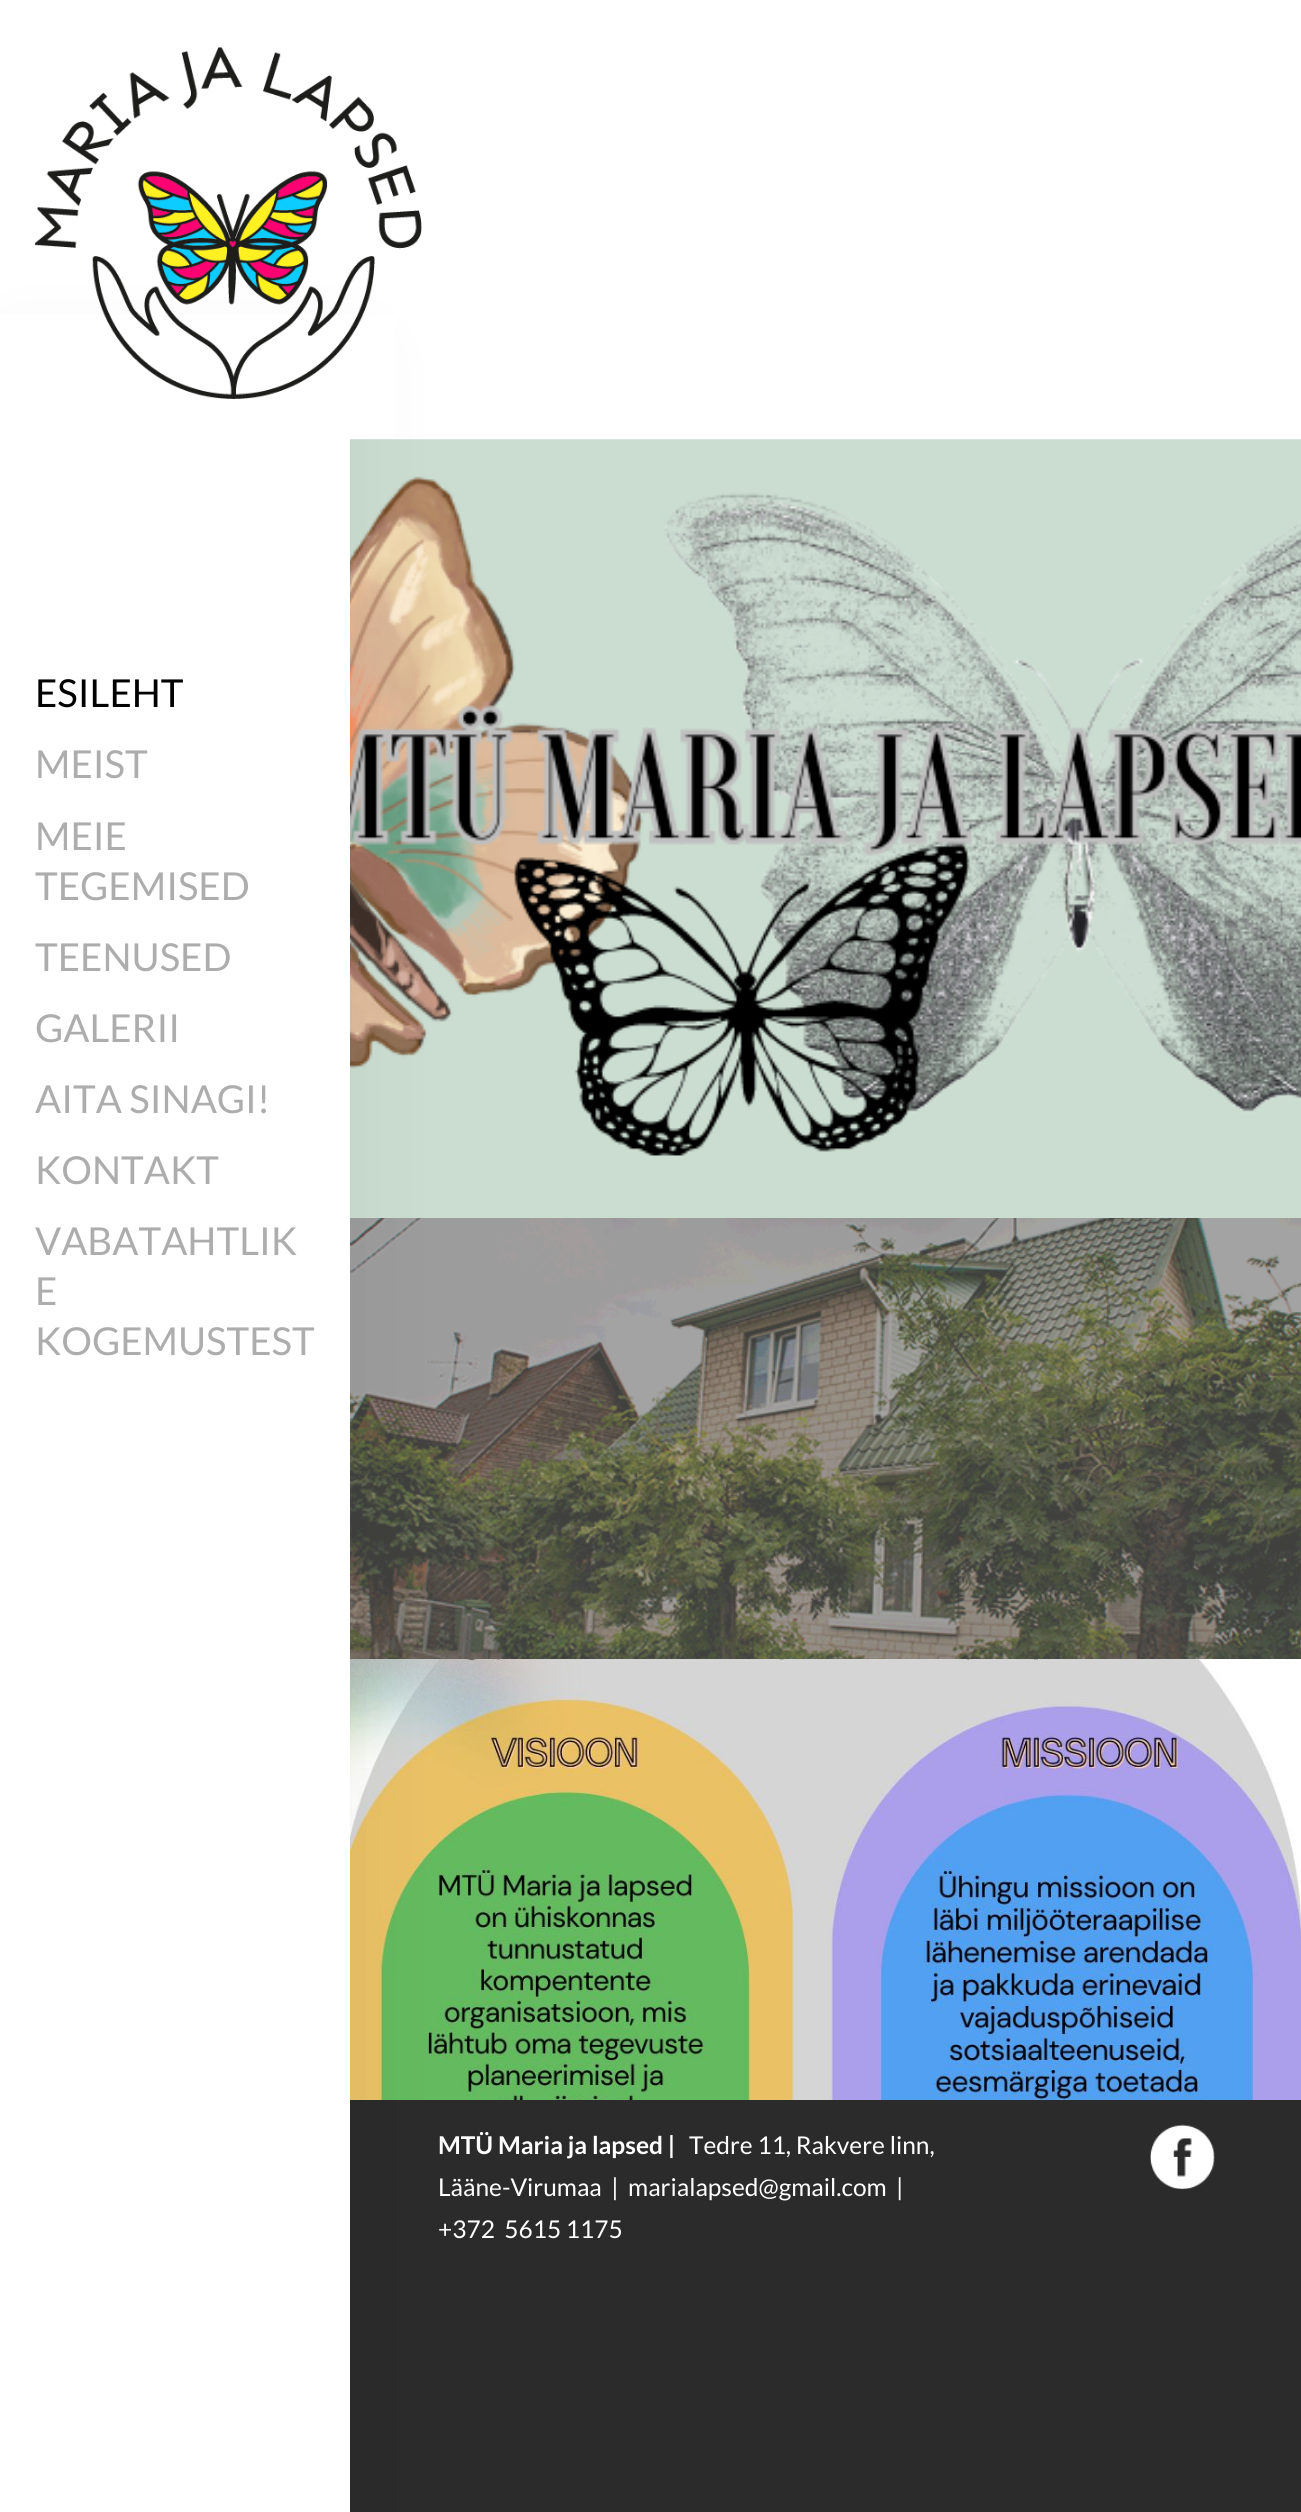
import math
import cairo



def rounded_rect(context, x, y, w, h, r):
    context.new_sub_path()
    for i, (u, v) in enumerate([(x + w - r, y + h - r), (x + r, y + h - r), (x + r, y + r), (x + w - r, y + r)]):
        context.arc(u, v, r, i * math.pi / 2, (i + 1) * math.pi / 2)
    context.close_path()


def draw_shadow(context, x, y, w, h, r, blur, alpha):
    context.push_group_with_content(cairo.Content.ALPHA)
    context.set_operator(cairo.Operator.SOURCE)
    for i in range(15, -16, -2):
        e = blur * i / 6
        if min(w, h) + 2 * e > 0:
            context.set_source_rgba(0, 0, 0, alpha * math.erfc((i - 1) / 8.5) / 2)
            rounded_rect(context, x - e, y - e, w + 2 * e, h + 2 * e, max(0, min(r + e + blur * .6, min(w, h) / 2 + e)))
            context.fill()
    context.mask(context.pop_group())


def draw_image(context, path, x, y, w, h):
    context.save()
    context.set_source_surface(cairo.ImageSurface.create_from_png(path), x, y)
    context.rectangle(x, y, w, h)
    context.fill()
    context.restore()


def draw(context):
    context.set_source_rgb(1, 1, 1)
    context.paint()
    draw_image(context, "images/2.png", 350, 439, 951, 779)
    draw_image(context, "images/3.png", 350, 1218, 951, 441)
    draw_image(context, "images/4.png", 350, 1659, 951, 441)
    context.set_source_rgb(43 / 255, 43 / 255, 43 / 255)
    context.rectangle(350, 2100, 951, 412)
    context.fill()
    context.set_source_rgb(0, 0, 0)
    draw_shadow(context, 9, 352, 350, 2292, 0, 44, 0.05)
    context.set_source_rgb(1, 1, 1)
    context.rectangle(0, 315, 395, 124)
    context.fill()
    draw_image(context, "images/1.png", 35, 47, 387, 352)
    context.rectangle(0, 439, 350, 2073)
    context.fill()
    draw_image(context, "images/5.png", 1150, 2124, 65, 66)
    context.select_font_face("Lato")
    context.set_font_size(38.5)
    context.set_source_rgb(0, 0, 0)
    context.move_to(35, 707)
    context.show_text("ESILEHT")
    context.set_source_rgb(173 / 255, 173 / 255, 173 / 255)
    context.move_to(35, 778)
    context.show_text("MEIST")
    context.move_to(35, 850)
    context.show_text("MEIE")
    context.move_to(35, 900)
    context.show_text("TEGEMISED")
    context.move_to(35, 971)
    context.show_text("TEENUSED")
    context.move_to(35, 1042)
    context.show_text("GALERII")
    context.move_to(35, 1113)
    context.show_text("AITA SINAGI!")
    context.move_to(35, 1184)
    context.show_text("KONTAKT")
    context.move_to(35, 1255)
    context.show_text("VABATAHTLIK")
    context.move_to(35, 1305)
    context.show_text("E")
    context.move_to(35, 1355)
    context.show_text("KOGEMUSTEST")
    context.select_font_face("Lato", cairo.FontSlant.NORMAL, cairo.FontWeight.BOLD)
    context.set_font_size(24.5)
    context.set_source_rgb(1, 1, 1)
    context.move_to(438, 2154)
    context.show_text("MTÜ Maria ja lapsed |")
    context.select_font_face("Lato")
    context.move_to(689, 2154)
    context.show_text("Tedre 11, Rakvere linn,")
    context.move_to(438, 2196)
    context.show_text("Lääne-Virumaa  |  marialapsed@gmail.com  |")
    context.move_to(438, 2238)
    context.show_text("+372  5615 1175")


surface = cairo.ImageSurface(cairo.Format.RGB24, 1301, 2512)
context = cairo.Context(surface)
options = cairo.FontOptions()
options.set_hint_metrics(cairo.HintMetrics.OFF)
options.set_hint_style(cairo.HintStyle.NONE)
context.set_font_options(options)
context.set_miter_limit(4)
draw(context)
surface.write_to_png("out.png")
